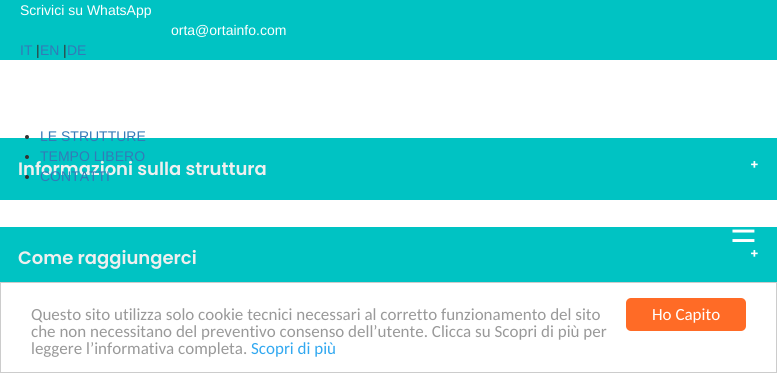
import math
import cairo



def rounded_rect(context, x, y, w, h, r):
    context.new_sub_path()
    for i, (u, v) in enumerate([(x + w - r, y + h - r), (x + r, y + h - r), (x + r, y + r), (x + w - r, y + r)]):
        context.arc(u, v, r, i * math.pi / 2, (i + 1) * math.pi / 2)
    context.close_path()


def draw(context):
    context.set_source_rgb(1, 1, 1)
    context.paint()
    context.set_source_rgb(0, 195 / 255, 195 / 255)
    context.rectangle(0, 0, 777, 60)
    context.fill()
    context.rectangle(0, 138, 777, 62)
    context.fill()
    context.set_source_rgb(51 / 255, 51 / 255, 51 / 255)
    context.arc(27, 137, 2, 0, 2 * math.pi)
    context.fill()
    context.arc(27, 157, 2, 0, 2 * math.pi)
    context.fill()
    context.set_source_rgb(0, 195 / 255, 195 / 255)
    context.rectangle(0, 227, 777, 55)
    context.fill()
    context.rectangle(0.5, 282.5, 776, 90)
    context.set_source_rgb(204 / 255, 204 / 255, 204 / 255)
    context.set_line_width(1)
    context.stroke()
    context.set_source_rgb(1, 107 / 255, 38 / 255)
    rounded_rect(context, 626, 298, 120, 33, 5)
    context.fill()
    context.select_font_face("Liberation Sans")
    context.set_font_size(14)
    context.set_source_rgb(1, 1, 1)
    context.move_to(20, 15)
    context.show_text("Scrivici su WhatsApp")
    context.move_to(171, 35)
    context.show_text("orta@ortainfo.com")
    context.set_source_rgb(51 / 255, 122 / 255, 183 / 255)
    context.move_to(20, 55)
    context.show_text("IT")
    context.set_source_rgb(51 / 255, 51 / 255, 51 / 255)
    context.move_to(36, 55)
    context.show_text("|")
    context.set_source_rgb(51 / 255, 122 / 255, 183 / 255)
    context.move_to(40, 55)
    context.show_text("EN")
    context.set_source_rgb(51 / 255, 51 / 255, 51 / 255)
    context.move_to(63, 55)
    context.show_text("|")
    context.set_source_rgb(51 / 255, 122 / 255, 183 / 255)
    context.move_to(67, 55)
    context.show_text("DE")
    context.move_to(40, 141)
    context.show_text("LE STRUTTURE")
    context.move_to(40, 161)
    context.show_text("TEMPO LIBERO")
    context.select_font_face("DejaVu Sans")
    context.set_font_size(30)
    context.set_source_rgb(1, 1, 1)
    context.move_to(730, 242)
    context.show_text("☰")
    context.select_font_face("Poppins SemiBold")
    context.set_font_size(18)
    context.set_source_rgb(239 / 255, 239 / 255, 239 / 255)
    context.move_to(18, 175)
    context.show_text("Informazioni sulla struttura")
    context.select_font_face("Liberation Sans")
    context.set_font_size(14)
    context.set_source_rgb(51 / 255, 122 / 255, 183 / 255)
    context.move_to(40, 181)
    context.show_text("CONTATTI")
    context.set_source_rgb(51 / 255, 51 / 255, 51 / 255)
    context.new_path()
    context.arc(27, 177, 2, 0, 2 * math.pi)
    context.fill()
    context.select_font_face("Poppins SemiBold")
    context.set_font_size(13)
    context.set_source_rgb(1, 1, 1)
    context.move_to(750, 169)
    context.show_text("+")
    context.set_font_size(18)
    context.set_source_rgb(239 / 255, 239 / 255, 239 / 255)
    context.move_to(18, 264)
    context.show_text("Come raggiungerci")
    context.set_font_size(13)
    context.set_source_rgb(1, 1, 1)
    context.move_to(750, 258)
    context.show_text("+")
    context.select_font_face("Carlito")
    context.set_font_size(17)
    context.set_source_rgb(153 / 255, 153 / 255, 153 / 255)
    context.move_to(31, 320)
    context.show_text("Questo sito utilizza solo cookie tecnici necessari al corretto funzionamento del sito")
    context.move_to(31, 337)
    context.show_text("che non necessitano del preventivo consenso dell’utente. Clicca su Scopri di più per")
    context.move_to(31, 354)
    context.show_text("leggere l’informativa completa.")
    context.set_source_rgb(49 / 255, 168 / 255, 240 / 255)
    context.move_to(251, 354)
    context.show_text("Scopri di più")
    context.set_source_rgb(1, 1, 1)
    context.move_to(652, 320)
    context.show_text("Ho Capito")


surface = cairo.ImageSurface(cairo.Format.RGB24, 777, 373)
context = cairo.Context(surface)
options = cairo.FontOptions()
options.set_hint_metrics(cairo.HintMetrics.OFF)
options.set_hint_style(cairo.HintStyle.NONE)
context.set_font_options(options)
context.set_miter_limit(4)
draw(context)
surface.write_to_png("out.png")
